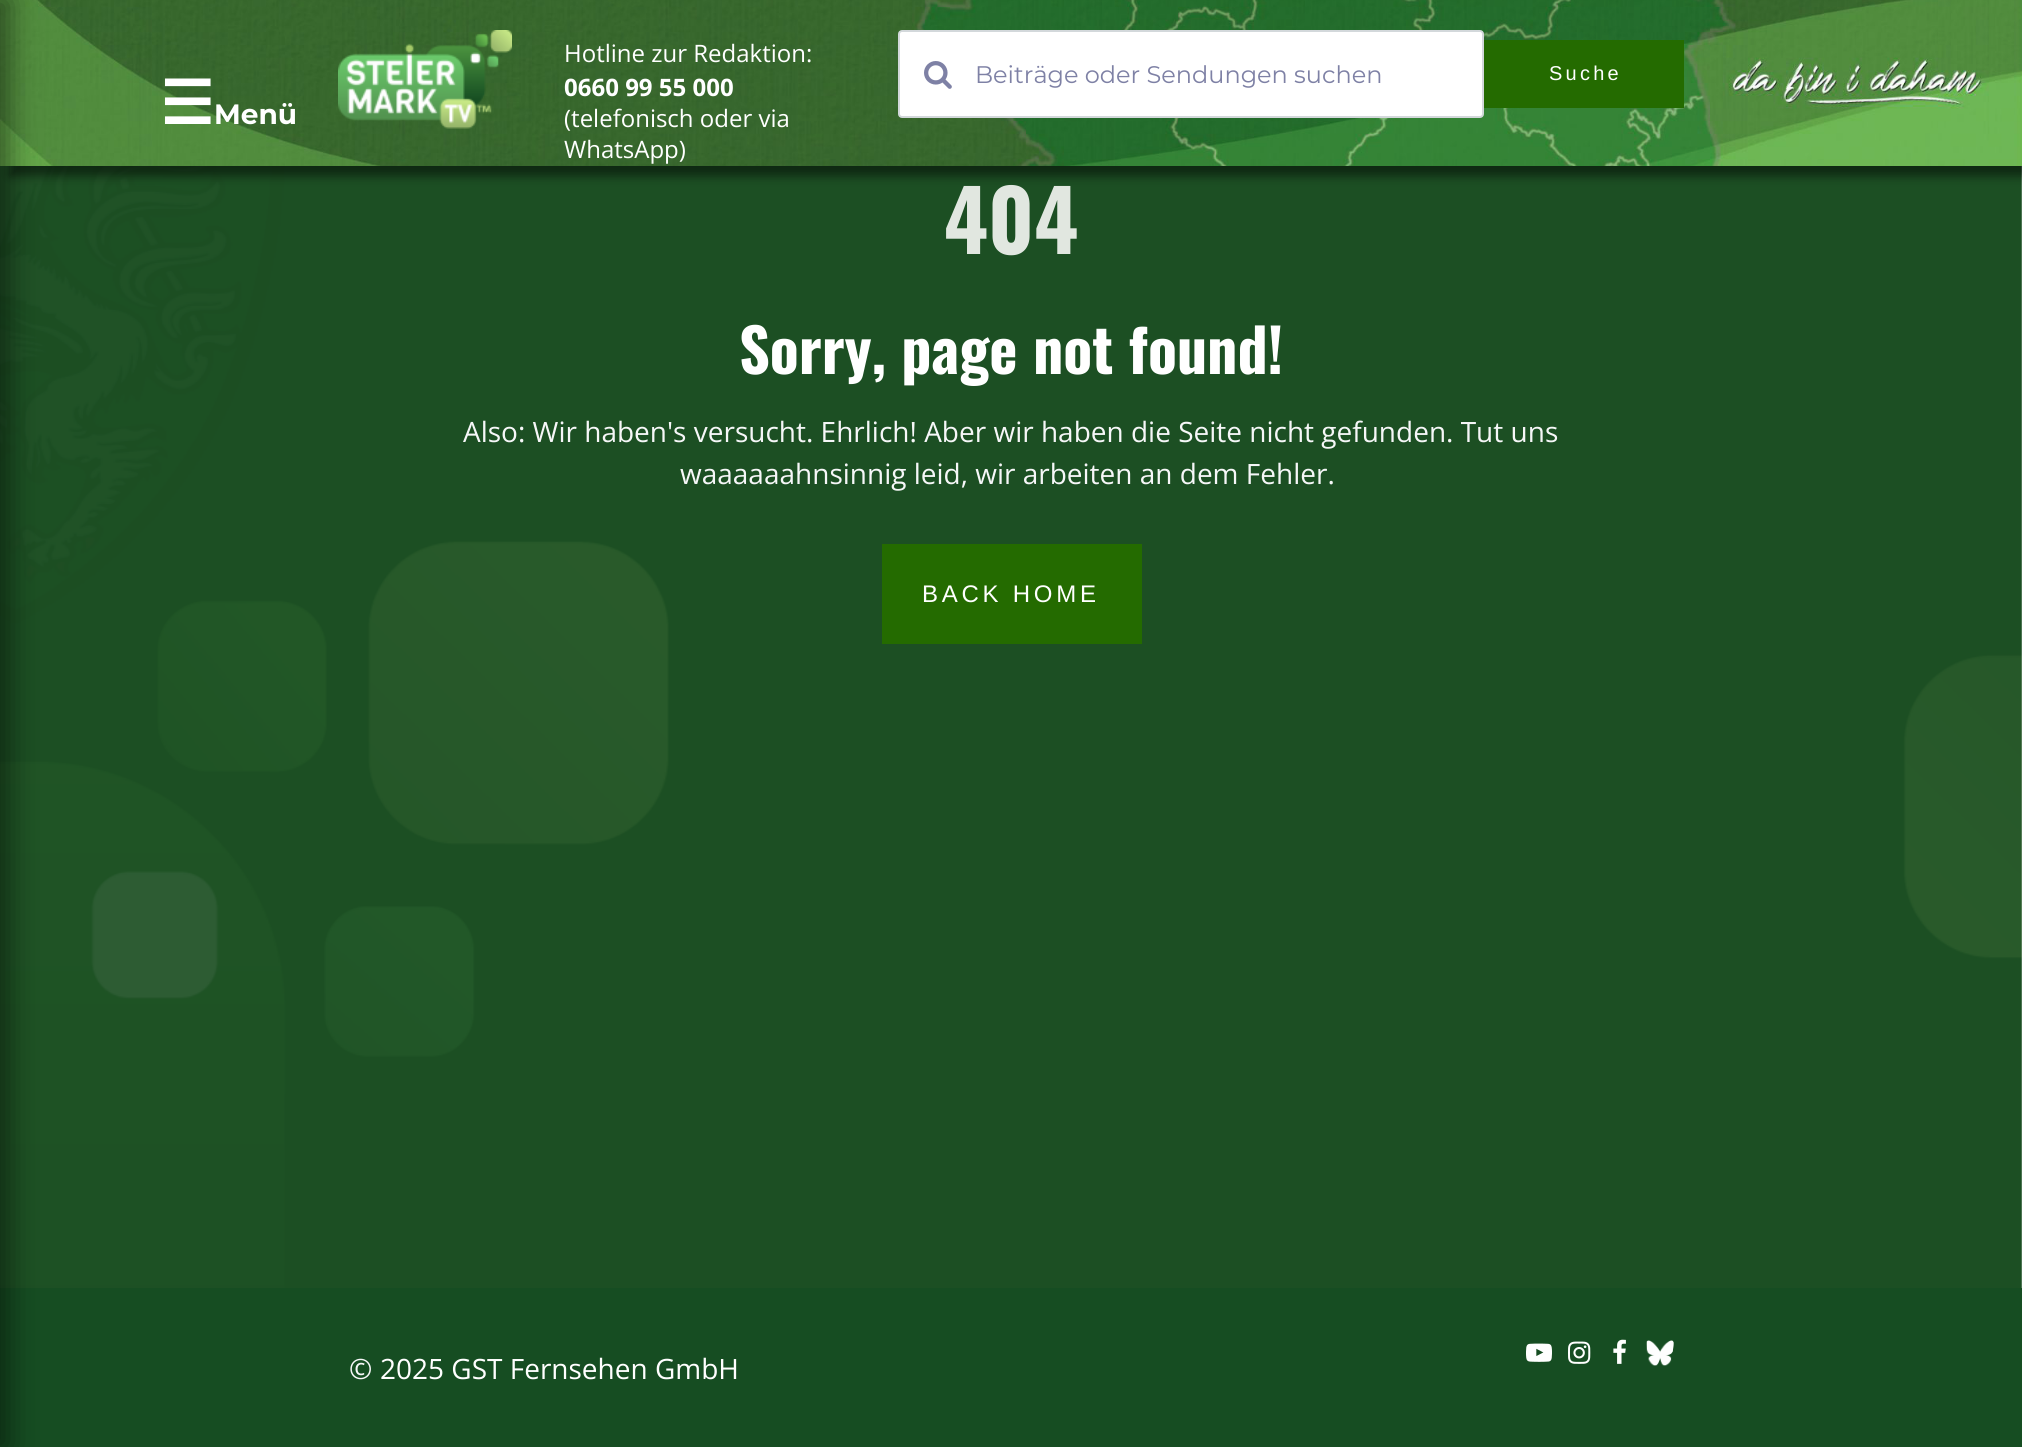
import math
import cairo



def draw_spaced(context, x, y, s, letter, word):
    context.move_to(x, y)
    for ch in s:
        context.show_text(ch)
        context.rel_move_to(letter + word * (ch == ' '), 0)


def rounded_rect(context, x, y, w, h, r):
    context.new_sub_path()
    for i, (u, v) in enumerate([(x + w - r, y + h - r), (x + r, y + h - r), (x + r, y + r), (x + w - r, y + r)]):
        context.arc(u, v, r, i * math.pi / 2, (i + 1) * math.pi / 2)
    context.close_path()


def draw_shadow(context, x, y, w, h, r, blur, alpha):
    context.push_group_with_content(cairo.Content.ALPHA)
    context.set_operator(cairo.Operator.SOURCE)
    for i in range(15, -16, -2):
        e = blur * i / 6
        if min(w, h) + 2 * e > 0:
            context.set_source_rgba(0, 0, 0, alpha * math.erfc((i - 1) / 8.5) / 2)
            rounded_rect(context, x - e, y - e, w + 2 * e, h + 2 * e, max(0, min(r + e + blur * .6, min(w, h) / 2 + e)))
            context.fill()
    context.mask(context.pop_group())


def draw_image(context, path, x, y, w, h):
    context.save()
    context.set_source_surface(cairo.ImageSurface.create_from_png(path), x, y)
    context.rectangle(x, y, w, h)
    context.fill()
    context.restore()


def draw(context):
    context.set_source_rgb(1, 1, 1)
    context.paint()
    draw_image(context, "images/1.png", 0, 166, 2022, 1122)
    context.set_source_rgb(0, 0, 0)
    draw_shadow(context, 10, 10, 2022, 166, 0, 5, 0.5)
    draw_image(context, "images/2.png", 0, 0, 2022, 166)
    draw_image(context, "images/3.png", 338, 30, 174, 99)
    context.set_source_rgb(1, 1, 1)
    rounded_rect(context, 899, 31, 584, 86, 3)
    context.fill_preserve()
    context.set_source_rgb(211 / 255, 216 / 255, 219 / 255)
    context.stroke()
    draw_image(context, "images/4.png", 924, 61, 28, 28)
    context.set_source_rgb(36 / 255, 107 / 255, 0)
    context.rectangle(1484, 40, 200, 68)
    context.fill()
    context.set_source_rgb(22 / 255, 77 / 255, 34 / 255)
    context.rectangle(0, 1288, 2022, 159)
    context.fill()
    context.set_source_rgb(0, 0, 0)
    draw_shadow(context, -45, 0, 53, 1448, 0, 15, 0.5)
    context.set_source_rgb(36 / 255, 107 / 255, 0)
    context.rectangle(882, 544, 260, 100)
    context.fill()
    draw_image(context, "images/5.png", 1526, 1343, 26, 19)
    draw_image(context, "images/6.png", 1568, 1341, 23, 23)
    draw_image(context, "images/7.png", 1613, 1339, 13, 25)
    draw_image(context, "images/8.png", 1646, 1340, 28, 26)
    context.select_font_face("DejaVu Sans", cairo.FontSlant.NORMAL, cairo.FontWeight.BOLD)
    context.set_font_size(60)
    context.set_source_rgb(1, 1, 1)
    context.move_to(160, 124)
    context.show_text("☰")
    context.select_font_face("Montserrat", cairo.FontSlant.NORMAL, cairo.FontWeight.BOLD)
    context.set_font_size(28)
    context.move_to(214, 124)
    context.show_text("Menü")
    context.select_font_face("Open Sans")
    context.set_font_size(24)
    context.move_to(564, 62)
    context.show_text("Hotline zur Redaktion:")
    context.select_font_face("Open Sans", cairo.FontSlant.NORMAL, cairo.FontWeight.BOLD)
    context.move_to(564, 96)
    context.show_text("0660 99 55 000")
    context.select_font_face("Open Sans")
    context.move_to(564, 127)
    context.show_text("(telefonisch oder via")
    context.move_to(564, 158)
    context.show_text("WhatsApp)")
    context.select_font_face("Montserrat")
    context.set_source_rgb(126 / 255, 129 / 255, 165 / 255)
    context.move_to(975, 83)
    context.show_text("Beiträge oder Sendungen suchen")
    context.select_font_face("Liberation Sans")
    context.set_font_size(20)
    context.set_source_rgb(1, 1, 1)
    draw_spaced(context, 1549, 80, "Suche", 3.25, 0)
    context.select_font_face("Oswald", cairo.FontSlant.NORMAL, cairo.FontWeight.BOLD)
    context.set_font_size(84)
    context.set_source_rgb(225 / 255, 231 / 255, 224 / 255)
    context.move_to(944, 254)
    context.show_text("404")
    context.set_font_size(60)
    context.set_source_rgb(1, 1, 1)
    context.move_to(739, 374)
    context.show_text("Sorry, page not found!")
    context.select_font_face("Open Sans")
    context.set_font_size(28)
    context.set_source_rgb(246 / 255, 247 / 255, 248 / 255)
    context.move_to(463, 442)
    context.show_text("Also: Wir haben's versucht. Ehrlich! Aber wir haben die Seite nicht gefunden. Tut uns")
    context.move_to(680, 484)
    context.show_text("waaaaaahnsinnig leid, wir arbeiten an dem Fehler.")
    context.select_font_face("Liberation Sans")
    context.set_font_size(24)
    context.set_source_rgb(1, 1, 1)
    draw_spaced(context, 922, 602, "BACK HOME", 3.75, 0)
    context.select_font_face("Open Sans")
    context.set_font_size(28)
    context.set_source_rgb(246 / 255, 247 / 255, 248 / 255)
    context.move_to(349, 1379)
    context.show_text("©")
    context.set_source_rgb(1, 1, 1)
    context.move_to(380, 1379)
    context.show_text("2025 GST Fernsehen GmbH")


surface = cairo.ImageSurface(cairo.Format.RGB24, 2022, 1447)
context = cairo.Context(surface)
options = cairo.FontOptions()
options.set_hint_metrics(cairo.HintMetrics.OFF)
options.set_hint_style(cairo.HintStyle.NONE)
context.set_font_options(options)
context.set_miter_limit(4)
draw(context)
surface.write_to_png("out.png")
